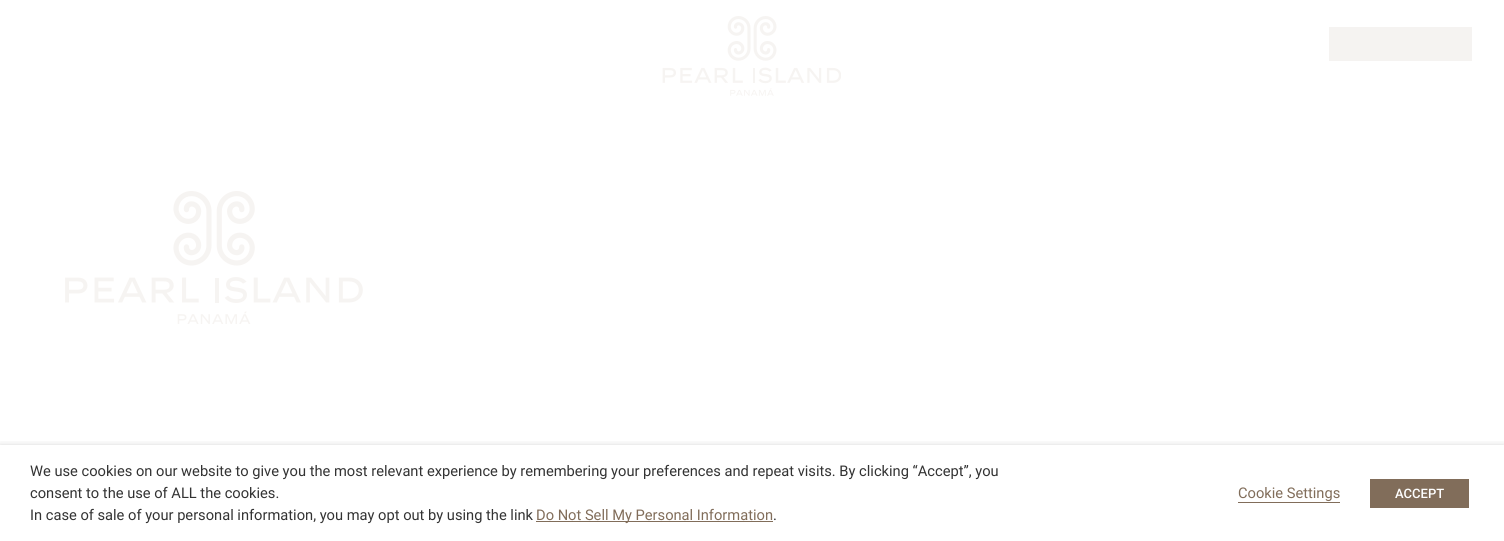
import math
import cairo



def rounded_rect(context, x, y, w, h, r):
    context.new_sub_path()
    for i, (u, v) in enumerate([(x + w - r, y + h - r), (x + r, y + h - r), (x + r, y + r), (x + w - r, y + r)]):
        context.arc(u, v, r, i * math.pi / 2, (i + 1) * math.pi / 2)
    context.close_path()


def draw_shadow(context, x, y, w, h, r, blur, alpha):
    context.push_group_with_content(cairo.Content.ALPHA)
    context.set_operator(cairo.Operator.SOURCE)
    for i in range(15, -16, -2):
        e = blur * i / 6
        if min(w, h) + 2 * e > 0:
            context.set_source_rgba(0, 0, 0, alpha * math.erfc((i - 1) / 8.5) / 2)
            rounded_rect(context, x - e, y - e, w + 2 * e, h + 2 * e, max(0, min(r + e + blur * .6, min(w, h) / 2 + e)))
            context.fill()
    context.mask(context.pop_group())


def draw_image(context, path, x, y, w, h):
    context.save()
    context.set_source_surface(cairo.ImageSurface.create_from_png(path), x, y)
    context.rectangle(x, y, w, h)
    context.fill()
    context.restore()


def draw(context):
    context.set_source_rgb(1, 1, 1)
    context.paint()
    draw_image(context, "images/1.png", 662, 16, 179, 80)
    context.set_source_rgb(245 / 255, 243 / 255, 241 / 255)
    context.rectangle(1329, 27, 143, 34)
    context.fill()
    draw_image(context, "images/2.png", 65, 191, 298, 133)
    draw_image(context, "images/3.png", 1340, 445, 100, 44)
    context.save()
    context.rectangle(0, 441, 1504, 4)
    context.clip()
    context.set_source_rgb(0, 0, 0)
    draw_shadow(context, 0, 450, 1504, 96, 0, 5, 0.5)
    context.restore()
    context.set_source_rgb(129 / 255, 109 / 255, 90 / 255)
    context.rectangle(536, 521, 237, 1)
    context.fill()
    context.rectangle(1238, 502, 102, 1)
    context.fill()
    context.rectangle(1370, 479, 99, 29)
    context.fill()
    context.select_font_face("Roboto")
    context.set_font_size(14.67)
    context.set_source_rgb(51 / 255, 51 / 255, 51 / 255)
    context.move_to(30, 476)
    context.show_text("We use cookies on our website to give you the most relevant experience by remembering your preferences and repeat visits. By clicking “Accept”, you")
    context.move_to(30, 498)
    context.show_text("consent to the use of ALL the cookies.")
    context.move_to(30, 520)
    context.show_text("In case of sale of your personal information, you may opt out by using the link")
    context.set_source_rgb(129 / 255, 109 / 255, 90 / 255)
    context.move_to(536, 520)
    context.show_text("Do Not Sell My Personal Information")
    context.set_source_rgb(51 / 255, 51 / 255, 51 / 255)
    context.move_to(773, 520)
    context.show_text(".")
    context.set_source_rgb(129 / 255, 109 / 255, 90 / 255)
    context.move_to(1238, 498)
    context.show_text("Cookie Settings")
    context.select_font_face("Roboto Medium")
    context.set_font_size(13)
    context.set_source_rgb(1, 1, 1)
    context.move_to(1395, 498)
    context.show_text("ACCEPT")


surface = cairo.ImageSurface(cairo.Format.RGB24, 1504, 541)
context = cairo.Context(surface)
options = cairo.FontOptions()
options.set_hint_metrics(cairo.HintMetrics.OFF)
options.set_hint_style(cairo.HintStyle.NONE)
context.set_font_options(options)
context.set_miter_limit(4)
draw(context)
surface.write_to_png("out.png")
